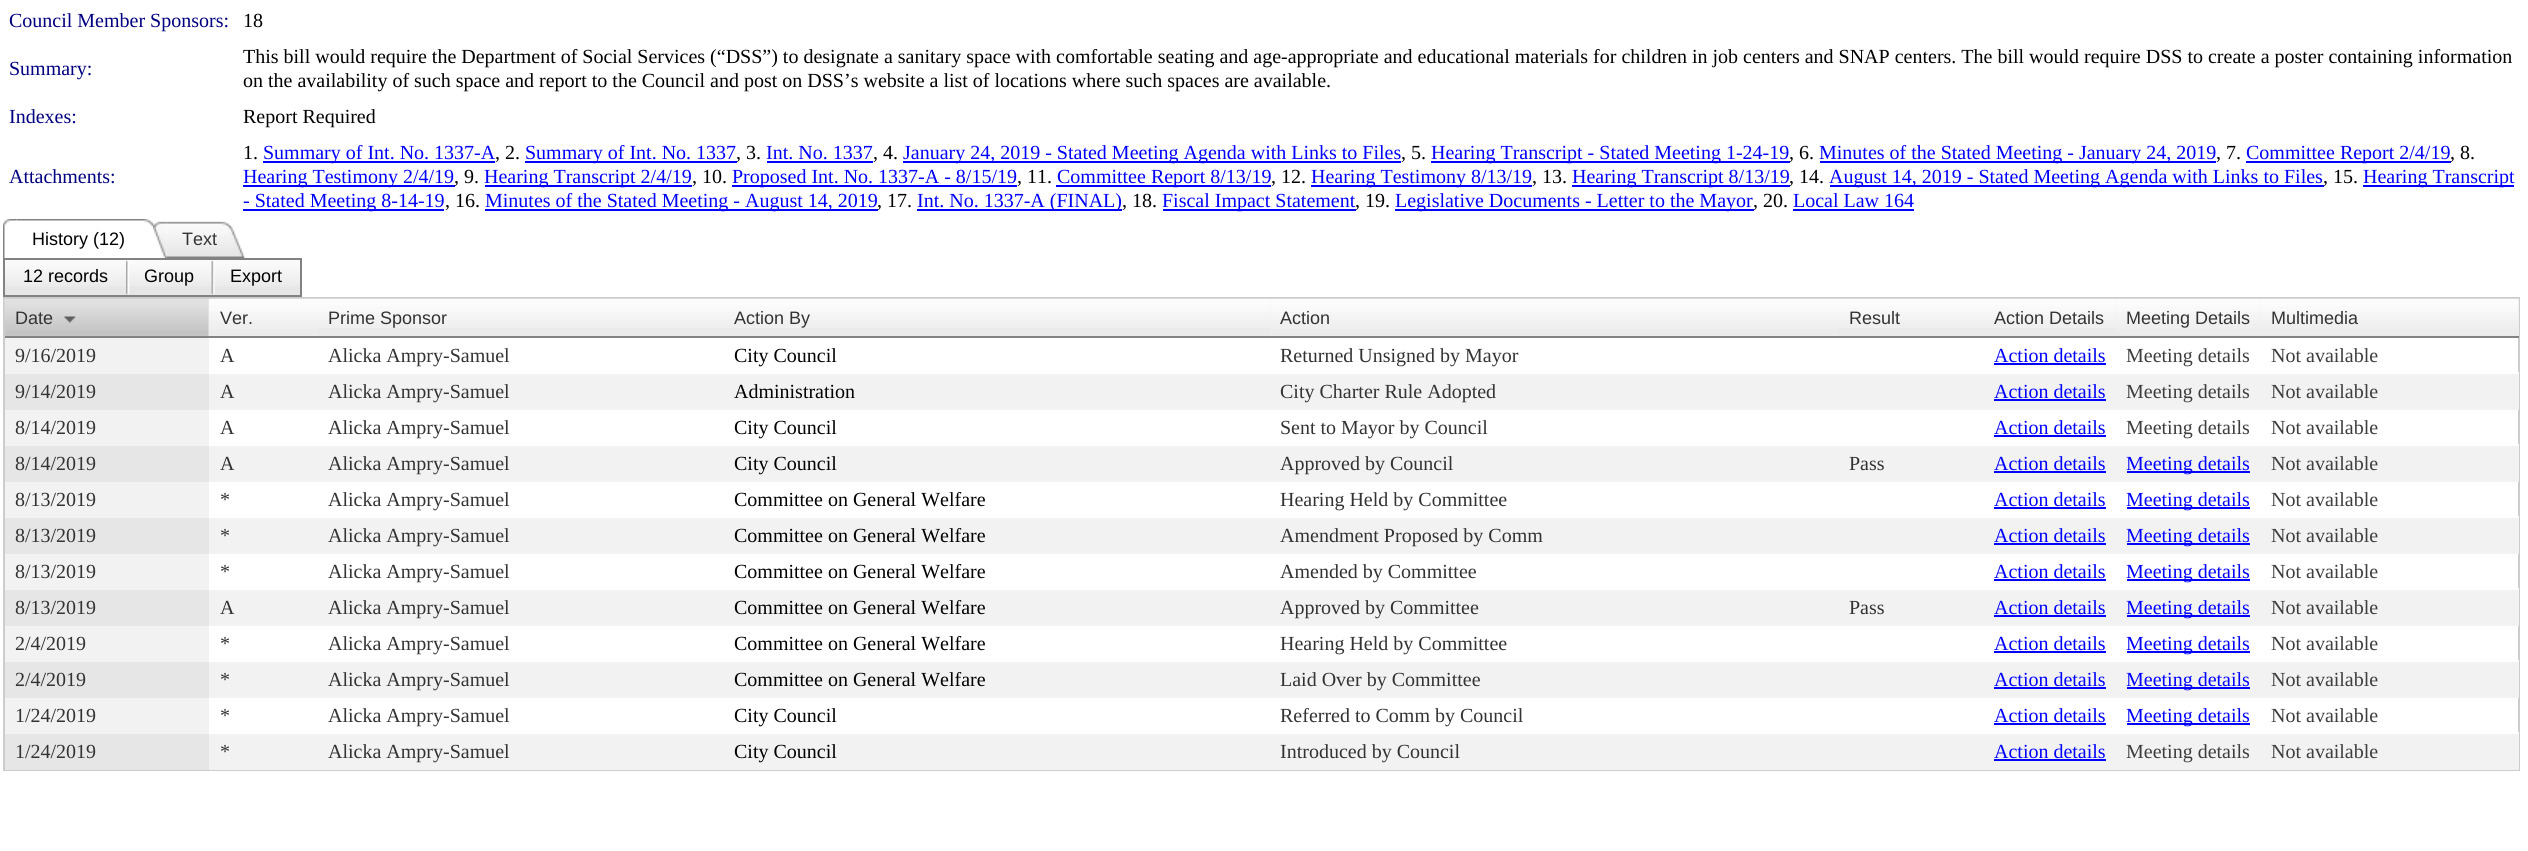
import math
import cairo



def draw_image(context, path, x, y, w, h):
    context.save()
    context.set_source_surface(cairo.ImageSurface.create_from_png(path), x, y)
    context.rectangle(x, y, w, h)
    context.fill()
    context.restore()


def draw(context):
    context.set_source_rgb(1, 1, 1)
    context.paint()
    context.set_source_rgb(0, 0, 1)
    context.rectangle(263, 161, 232, 2)
    context.fill()
    context.rectangle(525, 161, 212, 2)
    context.fill()
    context.rectangle(767, 161, 106, 2)
    context.fill()
    context.rectangle(903, 161, 498, 2)
    context.fill()
    context.rectangle(1431, 161, 359, 2)
    context.fill()
    context.rectangle(1820, 161, 396, 2)
    context.fill()
    context.rectangle(2246, 161, 205, 2)
    context.fill()
    context.rectangle(243, 185, 212, 2)
    context.fill()
    context.rectangle(485, 185, 207, 2)
    context.fill()
    context.rectangle(732, 185, 285, 2)
    context.fill()
    context.rectangle(1056, 185, 215, 2)
    context.fill()
    context.rectangle(1311, 185, 221, 2)
    context.fill()
    context.rectangle(1572, 185, 218, 2)
    context.fill()
    context.rectangle(1830, 185, 494, 2)
    context.fill()
    context.rectangle(2363, 185, 151, 2)
    context.fill()
    context.rectangle(243, 209, 201, 2)
    context.fill()
    context.rectangle(485, 209, 393, 2)
    context.fill()
    context.rectangle(917, 209, 205, 2)
    context.fill()
    context.rectangle(1163, 209, 193, 2)
    context.fill()
    context.rectangle(1395, 209, 359, 2)
    context.fill()
    context.rectangle(1793, 209, 121, 2)
    context.fill()
    draw_image(context, "images/1.png", 3, 219, 14, 39)
    draw_image(context, "images/2.png", 16, 219, 137, 8)
    draw_image(context, "images/3.png", 153, 221, 14, 37)
    draw_image(context, "images/4.png", 166, 221, 79, 37)
    context.set_source_rgb(230 / 255, 230 / 255, 230 / 255)
    context.rectangle(5, 287, 295, 8)
    context.fill()
    draw_image(context, "images/5.png", 5, 260, 295, 27)
    context.rectangle(4, 259, 297, 37)
    context.set_source_rgb(130 / 255, 130 / 255, 130 / 255)
    context.stroke()
    draw_image(context, "images/6.png", 126, 260, 4, 35)
    draw_image(context, "images/7.png", 211, 260, 4, 35)
    context.rectangle(4, 298, 2515, 472)
    context.set_source_rgb(204 / 255, 204 / 255, 204 / 255)
    context.stroke()
    context.set_source_rgb(196 / 255, 196 / 255, 196 / 255)
    context.rectangle(5, 299, 204, 37)
    context.fill()
    draw_image(context, "images/8.png", 4, 298, 205, 32)
    context.set_source_rgb(130 / 255, 130 / 255, 130 / 255)
    context.rectangle(5, 336, 204, 2)
    context.fill()
    draw_image(context, "images/9.png", 64, 316, 12, 7)
    draw_image(context, "images/10.png", 208, 298, 110, 39)
    context.rectangle(209, 336, 1062, 2)
    context.fill()
    context.set_source_rgb(234 / 255, 234 / 255, 234 / 255)
    context.rectangle(318, 328, 405, 8)
    context.fill()
    draw_image(context, "images/11.png", 318, 298, 405, 30)
    context.rectangle(723, 299, 548, 37)
    context.fill()
    draw_image(context, "images/12.png", 723, 298, 548, 30)
    draw_image(context, "images/13.png", 1270, 298, 569, 39)
    context.set_source_rgb(130 / 255, 130 / 255, 130 / 255)
    context.rectangle(1271, 336, 846, 2)
    context.fill()
    context.set_source_rgb(234 / 255, 234 / 255, 234 / 255)
    context.rectangle(1839, 328, 144, 8)
    context.fill()
    draw_image(context, "images/14.png", 1839, 298, 144, 30)
    context.rectangle(1983, 299, 536, 37)
    context.fill()
    draw_image(context, "images/15.png", 1983, 298, 134, 30)
    draw_image(context, "images/16.png", 2116, 298, 145, 39)
    context.set_source_rgb(130 / 255, 130 / 255, 130 / 255)
    context.rectangle(2117, 336, 144, 2)
    context.fill()
    draw_image(context, "images/17.png", 2260, 298, 259, 39)
    context.rectangle(2261, 336, 258, 2)
    context.fill()
    context.set_source_rgb(242 / 255, 242 / 255, 242 / 255)
    context.rectangle(5, 338, 204, 36)
    context.fill()
    context.set_source_rgb(0, 0, 1)
    context.rectangle(1994, 363, 112, 2)
    context.fill()
    context.set_source_rgb(1, 1, 1)
    context.rectangle(2518, 372, 1, 2)
    context.fill()
    context.set_source_rgb(242 / 255, 242 / 255, 242 / 255)
    context.rectangle(209, 374, 2310, 36)
    context.fill()
    context.set_source_rgb(230 / 255, 230 / 255, 230 / 255)
    context.rectangle(5, 374, 204, 36)
    context.fill()
    context.set_source_rgb(0, 0, 1)
    context.rectangle(1994, 399, 112, 2)
    context.fill()
    context.set_source_rgb(242 / 255, 242 / 255, 242 / 255)
    context.rectangle(5, 410, 204, 36)
    context.fill()
    context.set_source_rgb(0, 0, 1)
    context.rectangle(1994, 435, 112, 2)
    context.fill()
    context.set_source_rgb(1, 1, 1)
    context.rectangle(2518, 444, 1, 2)
    context.fill()
    context.set_source_rgb(242 / 255, 242 / 255, 242 / 255)
    context.rectangle(209, 446, 2310, 36)
    context.fill()
    context.set_source_rgb(230 / 255, 230 / 255, 230 / 255)
    context.rectangle(5, 446, 204, 36)
    context.fill()
    context.set_source_rgb(0, 0, 1)
    context.rectangle(1994, 471, 112, 2)
    context.fill()
    context.rectangle(2127, 471, 123, 2)
    context.fill()
    context.set_source_rgb(242 / 255, 242 / 255, 242 / 255)
    context.rectangle(5, 482, 204, 36)
    context.fill()
    context.set_source_rgb(0, 0, 1)
    context.rectangle(1994, 507, 112, 2)
    context.fill()
    context.rectangle(2127, 507, 123, 2)
    context.fill()
    context.set_source_rgb(1, 1, 1)
    context.rectangle(2518, 516, 1, 2)
    context.fill()
    context.set_source_rgb(242 / 255, 242 / 255, 242 / 255)
    context.rectangle(209, 518, 2310, 36)
    context.fill()
    context.set_source_rgb(230 / 255, 230 / 255, 230 / 255)
    context.rectangle(5, 518, 204, 36)
    context.fill()
    context.set_source_rgb(0, 0, 1)
    context.rectangle(1994, 543, 112, 2)
    context.fill()
    context.rectangle(2127, 543, 123, 2)
    context.fill()
    context.set_source_rgb(242 / 255, 242 / 255, 242 / 255)
    context.rectangle(5, 554, 204, 36)
    context.fill()
    context.set_source_rgb(0, 0, 1)
    context.rectangle(1994, 579, 112, 2)
    context.fill()
    context.rectangle(2127, 579, 123, 2)
    context.fill()
    context.set_source_rgb(1, 1, 1)
    context.rectangle(2518, 588, 1, 2)
    context.fill()
    context.set_source_rgb(242 / 255, 242 / 255, 242 / 255)
    context.rectangle(209, 590, 2310, 36)
    context.fill()
    context.set_source_rgb(230 / 255, 230 / 255, 230 / 255)
    context.rectangle(5, 590, 204, 36)
    context.fill()
    context.set_source_rgb(0, 0, 1)
    context.rectangle(1994, 615, 112, 2)
    context.fill()
    context.rectangle(2127, 615, 123, 2)
    context.fill()
    context.set_source_rgb(242 / 255, 242 / 255, 242 / 255)
    context.rectangle(5, 626, 204, 36)
    context.fill()
    context.set_source_rgb(0, 0, 1)
    context.rectangle(1994, 651, 112, 2)
    context.fill()
    context.rectangle(2127, 651, 123, 2)
    context.fill()
    context.set_source_rgb(1, 1, 1)
    context.rectangle(2518, 660, 1, 2)
    context.fill()
    context.set_source_rgb(242 / 255, 242 / 255, 242 / 255)
    context.rectangle(209, 662, 2310, 36)
    context.fill()
    context.set_source_rgb(230 / 255, 230 / 255, 230 / 255)
    context.rectangle(5, 662, 204, 36)
    context.fill()
    context.set_source_rgb(0, 0, 1)
    context.rectangle(1994, 687, 112, 2)
    context.fill()
    context.rectangle(2127, 687, 123, 2)
    context.fill()
    context.set_source_rgb(242 / 255, 242 / 255, 242 / 255)
    context.rectangle(5, 698, 204, 36)
    context.fill()
    context.set_source_rgb(0, 0, 1)
    context.rectangle(1994, 723, 112, 2)
    context.fill()
    context.rectangle(2127, 723, 123, 2)
    context.fill()
    context.set_source_rgb(1, 1, 1)
    context.rectangle(2518, 732, 1, 2)
    context.fill()
    context.set_source_rgb(242 / 255, 242 / 255, 242 / 255)
    context.rectangle(209, 734, 2310, 36)
    context.fill()
    context.set_source_rgb(230 / 255, 230 / 255, 230 / 255)
    context.rectangle(5, 734, 204, 36)
    context.fill()
    context.set_source_rgb(0, 0, 1)
    context.rectangle(1994, 759, 112, 2)
    context.fill()
    context.select_font_face("Liberation Serif")
    context.set_font_size(20)
    context.set_source_rgb(0, 0, 128 / 255)
    context.move_to(9, 27)
    context.show_text("Council Member Sponsors:")
    context.set_source_rgb(0, 0, 0)
    context.move_to(243, 27)
    context.show_text("18")
    context.set_source_rgb(0, 0, 128 / 255)
    context.move_to(9, 75)
    context.show_text("Summary:")
    context.set_source_rgb(0, 0, 0)
    context.move_to(243, 63)
    context.show_text("This bill would require the Department of Social Services (“DSS”) to designate a sanitary space with comfortable seating and age-appropriate and educational materials for children in job centers and SNAP centers. The bill would require DSS to create a poster containing information")
    context.move_to(243, 87)
    context.show_text("on the availability of such space and report to the Council and post on DSS’s website a list of locations where such spaces are available.")
    context.set_source_rgb(0, 0, 128 / 255)
    context.move_to(9, 123)
    context.show_text("Indexes:")
    context.set_source_rgb(0, 0, 0)
    context.move_to(243, 123)
    context.show_text("Report Required")
    context.set_source_rgb(0, 0, 128 / 255)
    context.move_to(9, 183)
    context.show_text("Attachments:")
    context.set_source_rgb(0, 0, 0)
    context.move_to(243, 159)
    context.show_text("1.")
    context.set_source_rgb(0, 0, 1)
    context.move_to(263, 159)
    context.show_text("Summary of Int. No. 1337-A")
    context.set_source_rgb(0, 0, 0)
    context.move_to(495, 159)
    context.show_text(", 2.")
    context.set_source_rgb(0, 0, 1)
    context.move_to(525, 159)
    context.show_text("Summary of Int. No. 1337")
    context.set_source_rgb(0, 0, 0)
    context.move_to(736, 159)
    context.show_text(", 3.")
    context.set_source_rgb(0, 0, 1)
    context.move_to(766, 159)
    context.show_text("Int. No. 1337")
    context.set_source_rgb(0, 0, 0)
    context.move_to(873, 159)
    context.show_text(", 4.")
    context.set_source_rgb(0, 0, 1)
    context.move_to(903, 159)
    context.show_text("January 24, 2019 - Stated Meeting Agenda with Links to Files")
    context.set_source_rgb(0, 0, 0)
    context.move_to(1401, 159)
    context.show_text(", 5.")
    context.set_source_rgb(0, 0, 1)
    context.move_to(1431, 159)
    context.show_text("Hearing Transcript - Stated Meeting 1-24-19")
    context.set_source_rgb(0, 0, 0)
    context.move_to(1789, 159)
    context.show_text(", 6.")
    context.set_source_rgb(0, 0, 1)
    context.move_to(1819, 159)
    context.show_text("Minutes of the Stated Meeting - January 24, 2019")
    context.set_source_rgb(0, 0, 0)
    context.move_to(2216, 159)
    context.show_text(", 7.")
    context.set_source_rgb(0, 0, 1)
    context.move_to(2246, 159)
    context.show_text("Committee Report 2/4/19")
    context.set_source_rgb(0, 0, 0)
    context.move_to(2450, 159)
    context.show_text(", 8.")
    context.set_source_rgb(0, 0, 1)
    context.move_to(243, 183)
    context.show_text("Hearing Testimony 2/4/19")
    context.set_source_rgb(0, 0, 0)
    context.move_to(454, 183)
    context.show_text(", 9.")
    context.set_source_rgb(0, 0, 1)
    context.move_to(484, 183)
    context.show_text("Hearing Transcript 2/4/19")
    context.set_source_rgb(0, 0, 0)
    context.move_to(692, 183)
    context.show_text(", 10.")
    context.set_source_rgb(0, 0, 1)
    context.move_to(732, 183)
    context.show_text("Proposed Int. No. 1337-A - 8/15/19")
    context.set_source_rgb(0, 0, 0)
    context.move_to(1017, 183)
    context.show_text(", 11.")
    context.set_source_rgb(0, 0, 1)
    context.move_to(1057, 183)
    context.show_text("Committee Report 8/13/19")
    context.set_source_rgb(0, 0, 0)
    context.move_to(1271, 183)
    context.show_text(", 12.")
    context.set_source_rgb(0, 0, 1)
    context.move_to(1311, 183)
    context.show_text("Hearing Testimony 8/13/19")
    context.set_source_rgb(0, 0, 0)
    context.move_to(1532, 183)
    context.show_text(", 13.")
    context.set_source_rgb(0, 0, 1)
    context.move_to(1572, 183)
    context.show_text("Hearing Transcript 8/13/19")
    context.set_source_rgb(0, 0, 0)
    context.move_to(1789, 183)
    context.show_text(", 14.")
    context.set_source_rgb(0, 0, 1)
    context.move_to(1829, 183)
    context.show_text("August 14, 2019 - Stated Meeting Agenda with Links to Files")
    context.set_source_rgb(0, 0, 0)
    context.move_to(2323, 183)
    context.show_text(", 15.")
    context.set_source_rgb(0, 0, 1)
    context.move_to(2363, 183)
    context.show_text("Hearing Transcript")
    context.move_to(243, 207)
    context.show_text("- Stated Meeting 8-14-19")
    context.set_source_rgb(0, 0, 0)
    context.move_to(445, 207)
    context.show_text(", 16.")
    context.set_source_rgb(0, 0, 1)
    context.move_to(485, 207)
    context.show_text("Minutes of the Stated Meeting - August 14, 2019")
    context.set_source_rgb(0, 0, 0)
    context.move_to(877, 207)
    context.show_text(", 17.")
    context.set_source_rgb(0, 0, 1)
    context.move_to(917, 207)
    context.show_text("Int. No. 1337-A (FINAL)")
    context.set_source_rgb(0, 0, 0)
    context.move_to(1122, 207)
    context.show_text(", 18.")
    context.set_source_rgb(0, 0, 1)
    context.move_to(1162, 207)
    context.show_text("Fiscal Impact Statement")
    context.set_source_rgb(0, 0, 0)
    context.move_to(1355, 207)
    context.show_text(", 19.")
    context.set_source_rgb(0, 0, 1)
    context.move_to(1395, 207)
    context.show_text("Legislative Documents - Letter to the Mayor")
    context.set_source_rgb(0, 0, 0)
    context.move_to(1753, 207)
    context.show_text(", 20.")
    context.set_source_rgb(0, 0, 1)
    context.move_to(1793, 207)
    context.show_text("Local Law 164")
    context.select_font_face("Liberation Sans")
    context.set_font_size(18)
    context.set_source_rgb(0, 0, 0)
    context.move_to(32, 245)
    context.show_text("History (12)")
    context.set_source_rgb(51 / 255, 51 / 255, 51 / 255)
    context.move_to(182, 245)
    context.show_text("Text")
    context.set_source_rgb(0, 0, 0)
    context.move_to(23, 282)
    context.show_text("12 records")
    context.move_to(144, 282)
    context.show_text("Group")
    context.move_to(230, 282)
    context.show_text("Export")
    context.set_source_rgb(51 / 255, 51 / 255, 51 / 255)
    context.move_to(15, 324)
    context.show_text("Date")
    context.move_to(220, 324)
    context.show_text("Ver.")
    context.move_to(328, 324)
    context.show_text("Prime Sponsor")
    context.move_to(734, 324)
    context.show_text("Action By")
    context.move_to(1280, 324)
    context.show_text("Action")
    context.move_to(1849, 324)
    context.show_text("Result")
    context.move_to(1994, 324)
    context.show_text("Action Details")
    context.move_to(2126, 324)
    context.show_text("Meeting Details")
    context.move_to(2271, 324)
    context.show_text("Multimedia")
    context.select_font_face("Liberation Serif")
    context.set_font_size(20)
    context.move_to(15, 362)
    context.show_text("9/16/2019")
    context.move_to(220, 362)
    context.show_text("A")
    context.move_to(328, 362)
    context.show_text("Alicka Ampry-Samuel")
    context.set_source_rgb(0, 0, 0)
    context.move_to(734, 362)
    context.show_text("City Council")
    context.set_source_rgb(51 / 255, 51 / 255, 51 / 255)
    context.move_to(1280, 362)
    context.show_text("Returned Unsigned by Mayor")
    context.set_source_rgb(0, 0, 1)
    context.move_to(1994, 362)
    context.show_text("Action details")
    context.set_source_rgb(61 / 255, 61 / 255, 61 / 255)
    context.move_to(2126, 362)
    context.show_text("Meeting details")
    context.move_to(2271, 362)
    context.show_text("Not available")
    context.set_source_rgb(51 / 255, 51 / 255, 51 / 255)
    context.move_to(15, 398)
    context.show_text("9/14/2019")
    context.move_to(220, 398)
    context.show_text("A")
    context.move_to(328, 398)
    context.show_text("Alicka Ampry-Samuel")
    context.set_source_rgb(0, 0, 0)
    context.move_to(734, 398)
    context.show_text("Administration")
    context.set_source_rgb(51 / 255, 51 / 255, 51 / 255)
    context.move_to(1280, 398)
    context.show_text("City Charter Rule Adopted")
    context.set_source_rgb(0, 0, 1)
    context.move_to(1994, 398)
    context.show_text("Action details")
    context.set_source_rgb(61 / 255, 61 / 255, 61 / 255)
    context.move_to(2126, 398)
    context.show_text("Meeting details")
    context.move_to(2271, 398)
    context.show_text("Not available")
    context.set_source_rgb(51 / 255, 51 / 255, 51 / 255)
    context.move_to(15, 434)
    context.show_text("8/14/2019")
    context.move_to(220, 434)
    context.show_text("A")
    context.move_to(328, 434)
    context.show_text("Alicka Ampry-Samuel")
    context.set_source_rgb(0, 0, 0)
    context.move_to(734, 434)
    context.show_text("City Council")
    context.set_source_rgb(51 / 255, 51 / 255, 51 / 255)
    context.move_to(1280, 434)
    context.show_text("Sent to Mayor by Council")
    context.set_source_rgb(0, 0, 1)
    context.move_to(1994, 434)
    context.show_text("Action details")
    context.set_source_rgb(61 / 255, 61 / 255, 61 / 255)
    context.move_to(2126, 434)
    context.show_text("Meeting details")
    context.move_to(2271, 434)
    context.show_text("Not available")
    context.set_source_rgb(51 / 255, 51 / 255, 51 / 255)
    context.move_to(15, 470)
    context.show_text("8/14/2019")
    context.move_to(220, 470)
    context.show_text("A")
    context.move_to(328, 470)
    context.show_text("Alicka Ampry-Samuel")
    context.set_source_rgb(0, 0, 0)
    context.move_to(734, 470)
    context.show_text("City Council")
    context.set_source_rgb(51 / 255, 51 / 255, 51 / 255)
    context.move_to(1280, 470)
    context.show_text("Approved by Council")
    context.move_to(1849, 470)
    context.show_text("Pass")
    context.set_source_rgb(0, 0, 1)
    context.move_to(1994, 470)
    context.show_text("Action details")
    context.move_to(2126, 470)
    context.show_text("Meeting details")
    context.set_source_rgb(61 / 255, 61 / 255, 61 / 255)
    context.move_to(2271, 470)
    context.show_text("Not available")
    context.set_source_rgb(51 / 255, 51 / 255, 51 / 255)
    context.move_to(15, 506)
    context.show_text("8/13/2019")
    context.move_to(220, 506)
    context.show_text("*")
    context.move_to(328, 506)
    context.show_text("Alicka Ampry-Samuel")
    context.set_source_rgb(0, 0, 0)
    context.move_to(734, 506)
    context.show_text("Committee on General Welfare")
    context.set_source_rgb(51 / 255, 51 / 255, 51 / 255)
    context.move_to(1280, 506)
    context.show_text("Hearing Held by Committee")
    context.set_source_rgb(0, 0, 1)
    context.move_to(1994, 506)
    context.show_text("Action details")
    context.move_to(2126, 506)
    context.show_text("Meeting details")
    context.set_source_rgb(61 / 255, 61 / 255, 61 / 255)
    context.move_to(2271, 506)
    context.show_text("Not available")
    context.set_source_rgb(51 / 255, 51 / 255, 51 / 255)
    context.move_to(15, 542)
    context.show_text("8/13/2019")
    context.move_to(220, 542)
    context.show_text("*")
    context.move_to(328, 542)
    context.show_text("Alicka Ampry-Samuel")
    context.set_source_rgb(0, 0, 0)
    context.move_to(734, 542)
    context.show_text("Committee on General Welfare")
    context.set_source_rgb(51 / 255, 51 / 255, 51 / 255)
    context.move_to(1280, 542)
    context.show_text("Amendment Proposed by Comm")
    context.set_source_rgb(0, 0, 1)
    context.move_to(1994, 542)
    context.show_text("Action details")
    context.move_to(2126, 542)
    context.show_text("Meeting details")
    context.set_source_rgb(61 / 255, 61 / 255, 61 / 255)
    context.move_to(2271, 542)
    context.show_text("Not available")
    context.set_source_rgb(51 / 255, 51 / 255, 51 / 255)
    context.move_to(15, 578)
    context.show_text("8/13/2019")
    context.move_to(220, 578)
    context.show_text("*")
    context.move_to(328, 578)
    context.show_text("Alicka Ampry-Samuel")
    context.set_source_rgb(0, 0, 0)
    context.move_to(734, 578)
    context.show_text("Committee on General Welfare")
    context.set_source_rgb(51 / 255, 51 / 255, 51 / 255)
    context.move_to(1280, 578)
    context.show_text("Amended by Committee")
    context.set_source_rgb(0, 0, 1)
    context.move_to(1994, 578)
    context.show_text("Action details")
    context.move_to(2126, 578)
    context.show_text("Meeting details")
    context.set_source_rgb(61 / 255, 61 / 255, 61 / 255)
    context.move_to(2271, 578)
    context.show_text("Not available")
    context.set_source_rgb(51 / 255, 51 / 255, 51 / 255)
    context.move_to(15, 614)
    context.show_text("8/13/2019")
    context.move_to(220, 614)
    context.show_text("A")
    context.move_to(328, 614)
    context.show_text("Alicka Ampry-Samuel")
    context.set_source_rgb(0, 0, 0)
    context.move_to(734, 614)
    context.show_text("Committee on General Welfare")
    context.set_source_rgb(51 / 255, 51 / 255, 51 / 255)
    context.move_to(1280, 614)
    context.show_text("Approved by Committee")
    context.move_to(1849, 614)
    context.show_text("Pass")
    context.set_source_rgb(0, 0, 1)
    context.move_to(1994, 614)
    context.show_text("Action details")
    context.move_to(2126, 614)
    context.show_text("Meeting details")
    context.set_source_rgb(61 / 255, 61 / 255, 61 / 255)
    context.move_to(2271, 614)
    context.show_text("Not available")
    context.set_source_rgb(51 / 255, 51 / 255, 51 / 255)
    context.move_to(15, 650)
    context.show_text("2/4/2019")
    context.move_to(220, 650)
    context.show_text("*")
    context.move_to(328, 650)
    context.show_text("Alicka Ampry-Samuel")
    context.set_source_rgb(0, 0, 0)
    context.move_to(734, 650)
    context.show_text("Committee on General Welfare")
    context.set_source_rgb(51 / 255, 51 / 255, 51 / 255)
    context.move_to(1280, 650)
    context.show_text("Hearing Held by Committee")
    context.set_source_rgb(0, 0, 1)
    context.move_to(1994, 650)
    context.show_text("Action details")
    context.move_to(2126, 650)
    context.show_text("Meeting details")
    context.set_source_rgb(61 / 255, 61 / 255, 61 / 255)
    context.move_to(2271, 650)
    context.show_text("Not available")
    context.set_source_rgb(51 / 255, 51 / 255, 51 / 255)
    context.move_to(15, 686)
    context.show_text("2/4/2019")
    context.move_to(220, 686)
    context.show_text("*")
    context.move_to(328, 686)
    context.show_text("Alicka Ampry-Samuel")
    context.set_source_rgb(0, 0, 0)
    context.move_to(734, 686)
    context.show_text("Committee on General Welfare")
    context.set_source_rgb(51 / 255, 51 / 255, 51 / 255)
    context.move_to(1280, 686)
    context.show_text("Laid Over by Committee")
    context.set_source_rgb(0, 0, 1)
    context.move_to(1994, 686)
    context.show_text("Action details")
    context.move_to(2126, 686)
    context.show_text("Meeting details")
    context.set_source_rgb(61 / 255, 61 / 255, 61 / 255)
    context.move_to(2271, 686)
    context.show_text("Not available")
    context.set_source_rgb(51 / 255, 51 / 255, 51 / 255)
    context.move_to(15, 722)
    context.show_text("1/24/2019")
    context.move_to(220, 722)
    context.show_text("*")
    context.move_to(328, 722)
    context.show_text("Alicka Ampry-Samuel")
    context.set_source_rgb(0, 0, 0)
    context.move_to(734, 722)
    context.show_text("City Council")
    context.set_source_rgb(51 / 255, 51 / 255, 51 / 255)
    context.move_to(1280, 722)
    context.show_text("Referred to Comm by Council")
    context.set_source_rgb(0, 0, 1)
    context.move_to(1994, 722)
    context.show_text("Action details")
    context.move_to(2126, 722)
    context.show_text("Meeting details")
    context.set_source_rgb(61 / 255, 61 / 255, 61 / 255)
    context.move_to(2271, 722)
    context.show_text("Not available")
    context.set_source_rgb(51 / 255, 51 / 255, 51 / 255)
    context.move_to(15, 758)
    context.show_text("1/24/2019")
    context.move_to(220, 758)
    context.show_text("*")
    context.move_to(328, 758)
    context.show_text("Alicka Ampry-Samuel")
    context.set_source_rgb(0, 0, 0)
    context.move_to(734, 758)
    context.show_text("City Council")
    context.set_source_rgb(51 / 255, 51 / 255, 51 / 255)
    context.move_to(1280, 758)
    context.show_text("Introduced by Council")
    context.set_source_rgb(0, 0, 1)
    context.move_to(1994, 758)
    context.show_text("Action details")
    context.set_source_rgb(61 / 255, 61 / 255, 61 / 255)
    context.move_to(2126, 758)
    context.show_text("Meeting details")
    context.move_to(2271, 758)
    context.show_text("Not available")


surface = cairo.ImageSurface(cairo.Format.RGB24, 2528, 851)
context = cairo.Context(surface)
options = cairo.FontOptions()
options.set_hint_metrics(cairo.HintMetrics.OFF)
options.set_hint_style(cairo.HintStyle.NONE)
context.set_font_options(options)
context.set_miter_limit(4)
draw(context)
surface.write_to_png("out.png")
